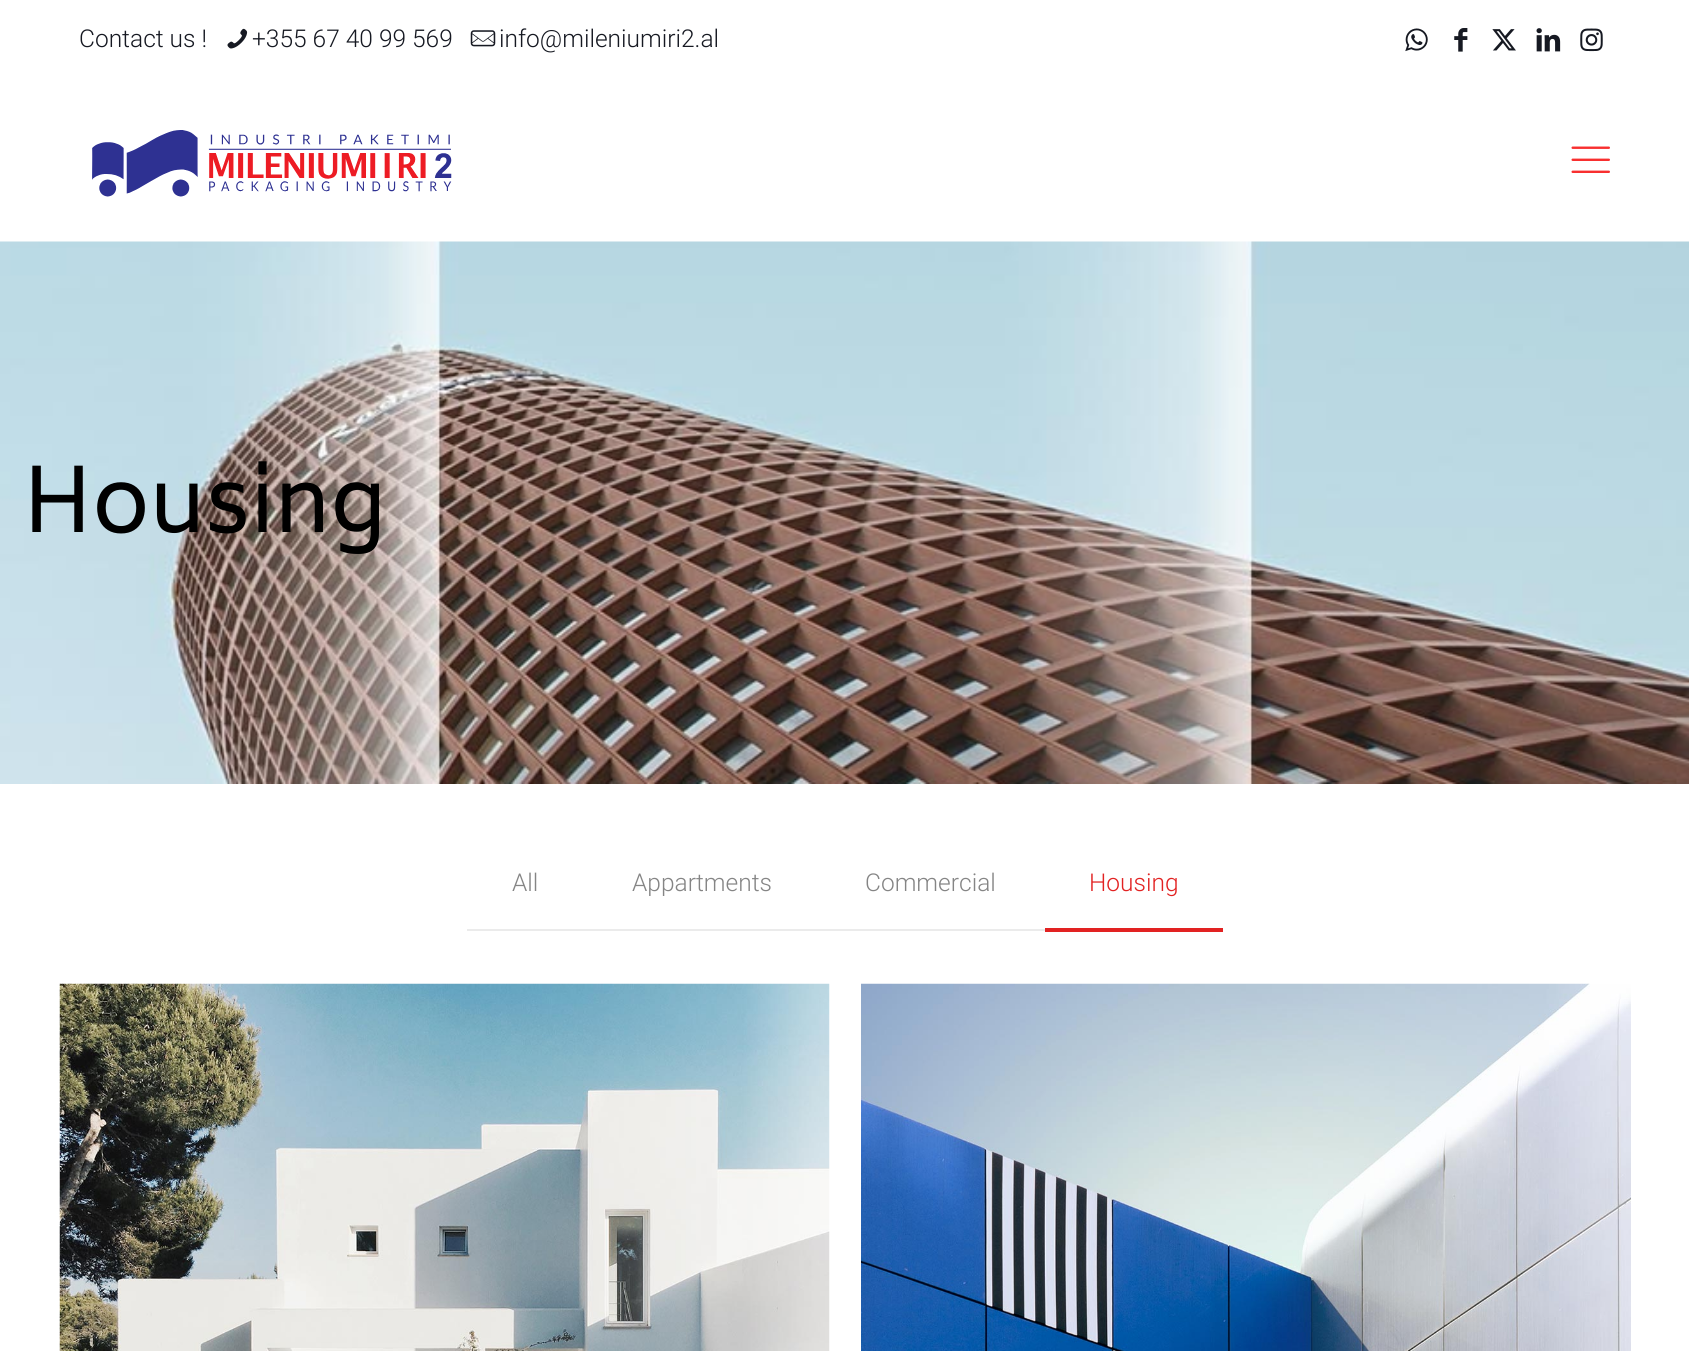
import math
import cairo



def draw_image(context, path, x, y, w, h):
    context.save()
    context.set_source_surface(cairo.ImageSurface.create_from_png(path), x, y)
    context.rectangle(x, y, w, h)
    context.fill()
    context.restore()


def draw(context):
    context.set_source_rgb(1, 1, 1)
    context.paint()
    draw_image(context, "images/1.png", 227, 28, 21, 21)
    draw_image(context, "images/2.png", 470, 30, 26, 17)
    draw_image(context, "images/3.png", 1405, 28, 23, 24)
    draw_image(context, "images/4.png", 1454, 28, 14, 24)
    draw_image(context, "images/5.png", 1492, 29, 24, 22)
    draw_image(context, "images/6.png", 1536, 28, 25, 24)
    draw_image(context, "images/7.png", 1580, 28, 23, 24)
    draw_image(context, "images/8.png", 92, 130, 360, 67)
    draw_image(context, "images/9.png", 1571, 146, 39, 27)
    draw_image(context, "images/10.png", 0, 241, 1689, 543)
    context.set_source_rgb(235 / 255, 235 / 255, 235 / 255)
    context.rectangle(467, 929, 578, 2)
    context.fill()
    context.set_source_rgb(226 / 255, 34 / 255, 34 / 255)
    context.rectangle(1045, 928, 178, 4)
    context.fill()
    draw_image(context, "images/11.png", 59, 983, 771, 368)
    draw_image(context, "images/12.png", 861, 983, 770, 368)
    context.select_font_face("Roboto Light")
    context.set_font_size(24.5)
    context.set_source_rgb(22 / 255, 25 / 255, 34 / 255)
    context.move_to(79, 47)
    context.show_text("Contact us !")
    context.move_to(252, 47)
    context.show_text("+355 67 40 99 569")
    context.move_to(499, 47)
    context.show_text("info@mileniumiri2.al")
    context.select_font_face("Biryani")
    context.set_font_size(87.5)
    context.set_source_rgb(0, 0, 0)
    context.move_to(23, 532)
    context.show_text("Housing")
    context.select_font_face("Roboto Light")
    context.set_font_size(24.5)
    context.set_source_rgb(133 / 255, 133 / 255, 133 / 255)
    context.move_to(512, 891)
    context.show_text("All")
    context.move_to(632, 891)
    context.show_text("Appartments")
    context.move_to(865, 891)
    context.show_text("Commercial")
    context.set_source_rgb(226 / 255, 34 / 255, 34 / 255)
    context.move_to(1089, 891)
    context.show_text("Housing")


surface = cairo.ImageSurface(cairo.Format.RGB24, 1689, 1351)
context = cairo.Context(surface)
options = cairo.FontOptions()
options.set_hint_metrics(cairo.HintMetrics.OFF)
options.set_hint_style(cairo.HintStyle.NONE)
context.set_font_options(options)
context.set_miter_limit(4)
draw(context)
surface.write_to_png("out.png")
